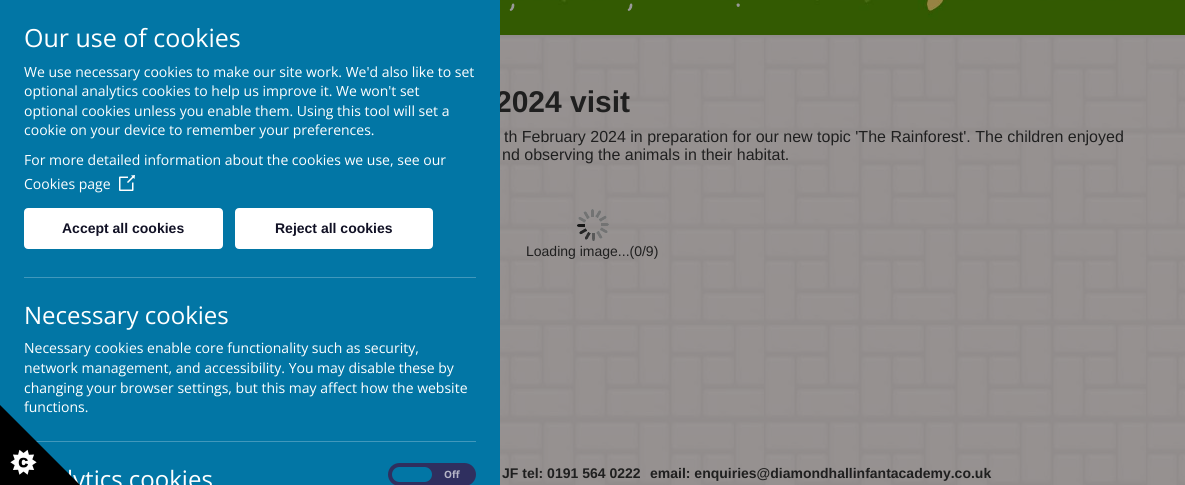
import math
import cairo



def rounded_rect(context, x, y, w, h, r):
    context.new_sub_path()
    for i, (u, v) in enumerate([(x + w - r, y + h - r), (x + r, y + h - r), (x + r, y + r), (x + w - r, y + r)]):
        context.arc(u, v, r, i * math.pi / 2, (i + 1) * math.pi / 2)
    context.close_path()


def draw_image(context, path, x, y, w, h):
    context.save()
    context.set_source_surface(cairo.ImageSurface.create_from_png(path), x, y)
    context.rectangle(x, y, w, h)
    context.fill()
    context.restore()


def draw(context):
    context.set_source_rgb(1, 1, 1)
    context.paint()
    draw_image(context, "images/1.png", 500, 0, 685, 35)
    draw_image(context, "images/2.png", 500, 35, 685, 450)
    draw_image(context, "images/5.png", 577, 209, 32, 32)
    context.select_font_face("Pangolin")
    context.set_font_size(32)
    context.set_source_rgb(153 / 255, 153 / 255, 153 / 255)
    context.move_to(508, 7)
    context.show_text(",")
    context.move_to(626, 7)
    context.show_text(",")
    context.move_to(735, 7)
    context.show_text(".")
    context.select_font_face("Liberation Sans", cairo.FontSlant.NORMAL, cairo.FontWeight.BOLD)
    context.set_font_size(14)
    context.set_source_rgb(31 / 255, 31 / 255, 31 / 255)
    context.move_to(502, 478)
    context.show_text("JF tel: 0191 564 0222")
    context.move_to(650, 478)
    context.show_text("email: enquiries@diamondhallinfantacademy.co.uk")
    context.set_font_size(30)
    context.move_to(495, 112)
    context.show_text("2024 visit")
    context.set_source_rgb(2 / 255, 118 / 255, 165 / 255)
    context.rectangle(0, 0, 500, 485)
    context.fill()
    context.select_font_face("Open Sans")
    context.set_font_size(24)
    context.set_source_rgb(1, 1, 1)
    context.move_to(67, 488)
    context.show_text("lytics cookies")
    context.set_source_rgb(65 / 255, 152 / 255, 188 / 255)
    context.rectangle(36, 441, 440, 1)
    context.fill()
    context.set_font_size(14)
    context.set_source_rgb(1, 1, 1)
    context.move_to(24, 412)
    context.show_text("functions.")
    draw_image(context, "images/4.png", 0, 405, 80, 80)
    context.set_source_rgb(47 / 255, 47 / 255, 95 / 255)
    rounded_rect(context, 390, 465, 84, 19, 9.5)
    context.fill_preserve()
    context.set_line_width(4)
    context.stroke()
    context.set_source_rgb(2 / 255, 118 / 255, 165 / 255)
    rounded_rect(context, 392, 467, 40, 15, 7.5)
    context.fill()
    context.select_font_face("Open Sans", cairo.FontSlant.NORMAL, cairo.FontWeight.BOLD)
    context.set_font_size(10)
    context.set_source_rgb(182 / 255, 182 / 255, 199 / 255)
    context.move_to(444, 478)
    context.show_text("Off")
    context.set_source_rgb(65 / 255, 152 / 255, 188 / 255)
    context.rectangle(24, 277, 452, 1)
    context.fill()
    draw_image(context, "images/3.png", 119, 175, 16, 16)
    context.select_font_face("Open Sans")
    context.set_font_size(14)
    context.set_source_rgb(1, 1, 1)
    context.move_to(24, 393)
    context.show_text("changing your browser settings, but this may affect how the website")
    context.move_to(24, 373)
    context.show_text("network management, and accessibility. You may disable these by")
    context.move_to(24, 353)
    context.show_text("Necessary cookies enable core functionality such as security,")
    context.set_font_size(24)
    context.move_to(24, 324)
    context.show_text("Necessary cookies")
    rounded_rect(context, 236, 209, 196, 39, 3)
    context.fill_preserve()
    context.set_line_width(2)
    context.stroke()
    context.select_font_face("Liberation Sans", cairo.FontSlant.NORMAL, cairo.FontWeight.BOLD)
    context.set_font_size(14)
    context.set_source_rgb(17 / 255, 17 / 255, 37 / 255)
    context.move_to(275, 233)
    context.show_text("Reject all cookies")
    context.set_source_rgb(1, 1, 1)
    rounded_rect(context, 25, 209, 197, 39, 3)
    context.fill_preserve()
    context.stroke()
    context.set_source_rgb(17 / 255, 17 / 255, 37 / 255)
    context.move_to(62, 233)
    context.show_text("Accept all cookies")
    context.select_font_face("Open Sans")
    context.set_source_rgb(1, 1, 1)
    context.move_to(24, 189)
    context.show_text("Cookies page")
    context.move_to(24, 165)
    context.show_text("For more detailed information about the cookies we use, see our")
    context.move_to(24, 135)
    context.show_text("cookie on your device to remember your preferences.")
    context.move_to(24, 116)
    context.show_text("optional cookies unless you enable them. Using this tool will set a")
    context.move_to(24, 96)
    context.show_text("optional analytics cookies to help us improve it. We won't set")
    context.move_to(24, 77)
    context.show_text("We use necessary cookies to make our site work. We'd also like to set")
    context.set_font_size(25)
    context.move_to(24, 47)
    context.show_text("Our use of cookies")
    context.select_font_face("Liberation Sans")
    context.set_font_size(16)
    context.set_source_rgb(31 / 255, 31 / 255, 31 / 255)
    context.move_to(504, 142)
    context.show_text("th February 2024 in preparation for our new topic 'The Rainforest'. The children enjoyed")
    context.move_to(502, 160)
    context.show_text("nd observing the animals in their habitat.")
    context.set_font_size(14)
    context.move_to(526, 256)
    context.show_text("Loading image...(0/9)")


surface = cairo.ImageSurface(cairo.Format.RGB24, 1185, 485)
context = cairo.Context(surface)
options = cairo.FontOptions()
options.set_hint_metrics(cairo.HintMetrics.OFF)
options.set_hint_style(cairo.HintStyle.NONE)
context.set_font_options(options)
context.set_miter_limit(4)
draw(context)
surface.write_to_png("out.png")
